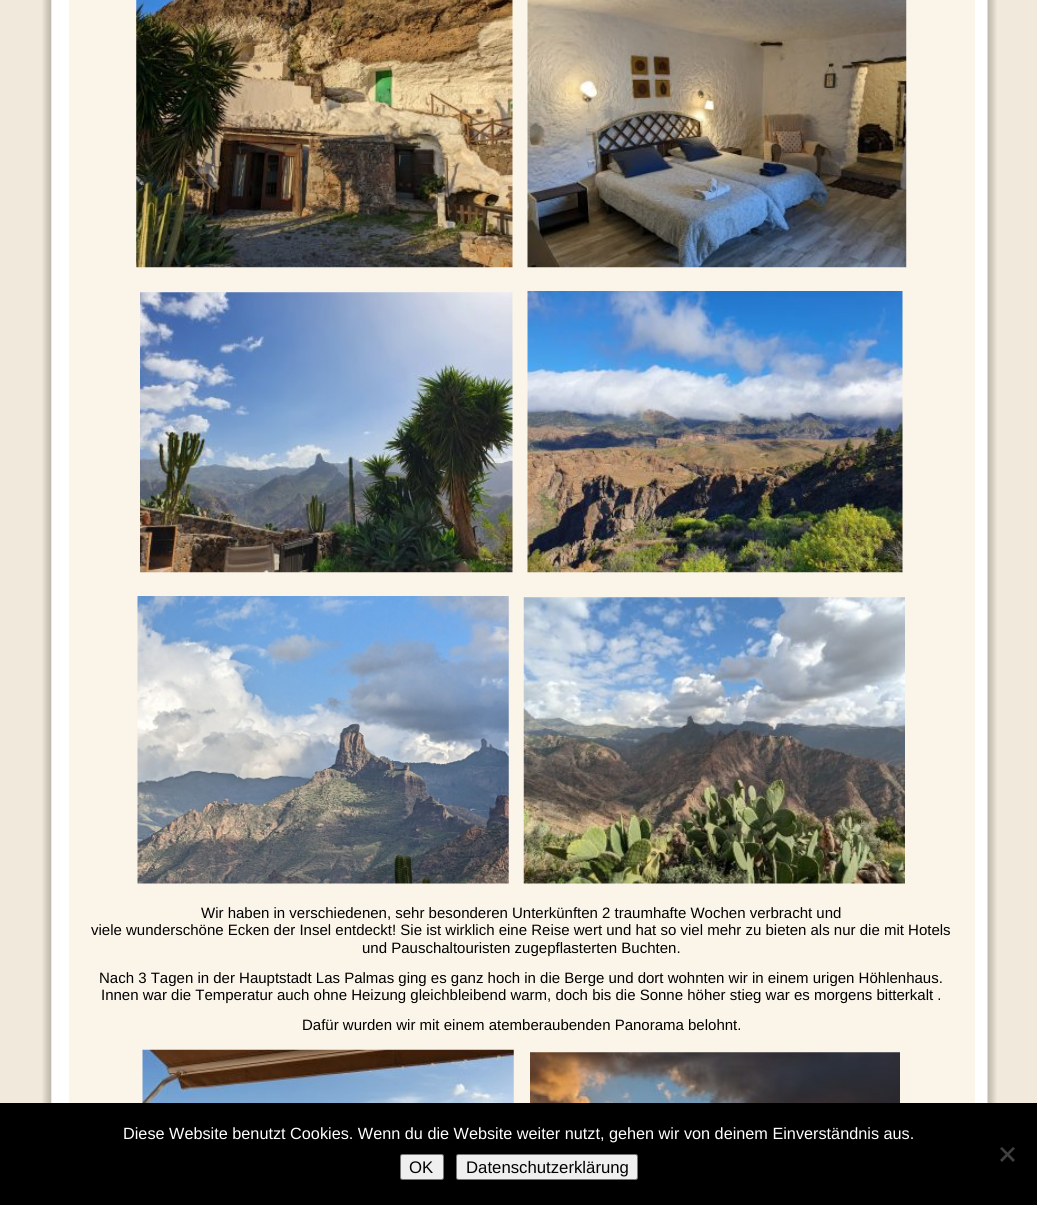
import math
import cairo



def rounded_rect(context, x, y, w, h, r):
    context.new_sub_path()
    for i, (u, v) in enumerate([(x + w - r, y + h - r), (x + r, y + h - r), (x + r, y + r), (x + w - r, y + r)]):
        context.arc(u, v, r, i * math.pi / 2, (i + 1) * math.pi / 2)
    context.close_path()


def draw_image(context, path, x, y, w, h):
    context.save()
    context.set_source_surface(cairo.ImageSurface.create_from_png(path), x, y)
    context.rectangle(x, y, w, h)
    context.fill()
    context.restore()


def draw(context):
    context.set_source_rgb(241 / 255, 233 / 255, 219 / 255)
    context.paint()
    draw_image(context, "images/1.png", 42, 0, 955, 1103)
    context.set_source_rgb(250 / 255, 244 / 255, 233 / 255)
    context.rectangle(69, 0, 906, 1103)
    context.fill()
    draw_image(context, "images/2.png", 136, 0, 377, 268)
    draw_image(context, "images/3.png", 527, 0, 380, 268)
    draw_image(context, "images/4.png", 140, 292, 373, 281)
    draw_image(context, "images/5.png", 527, 291, 376, 282)
    draw_image(context, "images/6.png", 137, 596, 372, 288)
    draw_image(context, "images/7.png", 523, 597, 382, 287)
    draw_image(context, "images/8.png", 142, 1049, 372, 54)
    draw_image(context, "images/9.png", 530, 1052, 370, 51)
    context.set_source_rgb(0, 0, 0)
    context.rectangle(0, 1103, 1037, 102)
    context.fill()
    context.set_source_rgb(64 / 255, 64 / 255, 64 / 255)
    context.new_path()
    context.move_to(1013, 1147)
    context.line_to(1015, 1148.5)
    context.line_to(1002, 1162)
    context.line_to(1000, 1160)
    context.close_path()
    context.fill()
    context.new_path()
    context.move_to(1000, 1148.5)
    context.line_to(1002, 1147)
    context.line_to(1015, 1160)
    context.line_to(1013, 1162)
    context.close_path()
    context.fill()
    context.set_source_rgb(239 / 255, 239 / 255, 239 / 255)
    rounded_rect(context, 400.5, 1154.5, 43, 25, 2)
    context.fill_preserve()
    context.set_source_rgb(118 / 255, 118 / 255, 118 / 255)
    context.set_line_width(1)
    context.stroke()
    context.set_source_rgb(239 / 255, 239 / 255, 239 / 255)
    rounded_rect(context, 456.5, 1154.5, 181, 25, 2)
    context.fill_preserve()
    context.set_source_rgb(118 / 255, 118 / 255, 118 / 255)
    context.stroke()
    context.select_font_face("Liberation Sans")
    context.set_font_size(15)
    context.set_source_rgb(0, 0, 0)
    context.move_to(201, 918)
    context.show_text("Wir haben in verschiedenen, sehr besonderen Unterkünften 2 traumhafte Wochen verbracht und")
    context.move_to(91, 935)
    context.show_text("viele wunderschöne Ecken der Insel entdeckt! Sie ist wirklich eine Reise wert und hat so viel mehr zu bieten als nur die mit Hotels")
    context.move_to(362, 953)
    context.show_text("und Pauschaltouristen zugepflasterten Buchten.")
    context.move_to(99, 983)
    context.show_text("Nach 3 Tagen in der Hauptstadt Las Palmas ging es ganz hoch in die Berge und dort wohnten wir in einem urigen Höhlenhaus.")
    context.move_to(101, 1000)
    context.show_text("Innen war die Temperatur auch ohne Heizung gleichbleibend warm, doch bis die Sonne höher stieg war es morgens bitterkalt .")
    context.move_to(302, 1030)
    context.show_text("Dafür wurden wir mit einem atemberaubenden Panorama belohnt.")
    context.set_font_size(16.25)
    context.set_source_rgb(1, 1, 1)
    context.move_to(123, 1139)
    context.show_text("Diese Website benutzt Cookies. Wenn du die Website weiter nutzt, gehen wir von deinem Einverständnis aus.")
    context.set_font_size(16.75)
    context.set_source_rgb(0, 0, 0)
    context.move_to(409, 1173)
    context.show_text("OK")
    context.move_to(466, 1173)
    context.show_text("Datenschutzerklärung")


surface = cairo.ImageSurface(cairo.Format.RGB24, 1037, 1205)
context = cairo.Context(surface)
options = cairo.FontOptions()
options.set_hint_metrics(cairo.HintMetrics.OFF)
options.set_hint_style(cairo.HintStyle.NONE)
context.set_font_options(options)
context.set_miter_limit(4)
draw(context)
surface.write_to_png("out.png")
